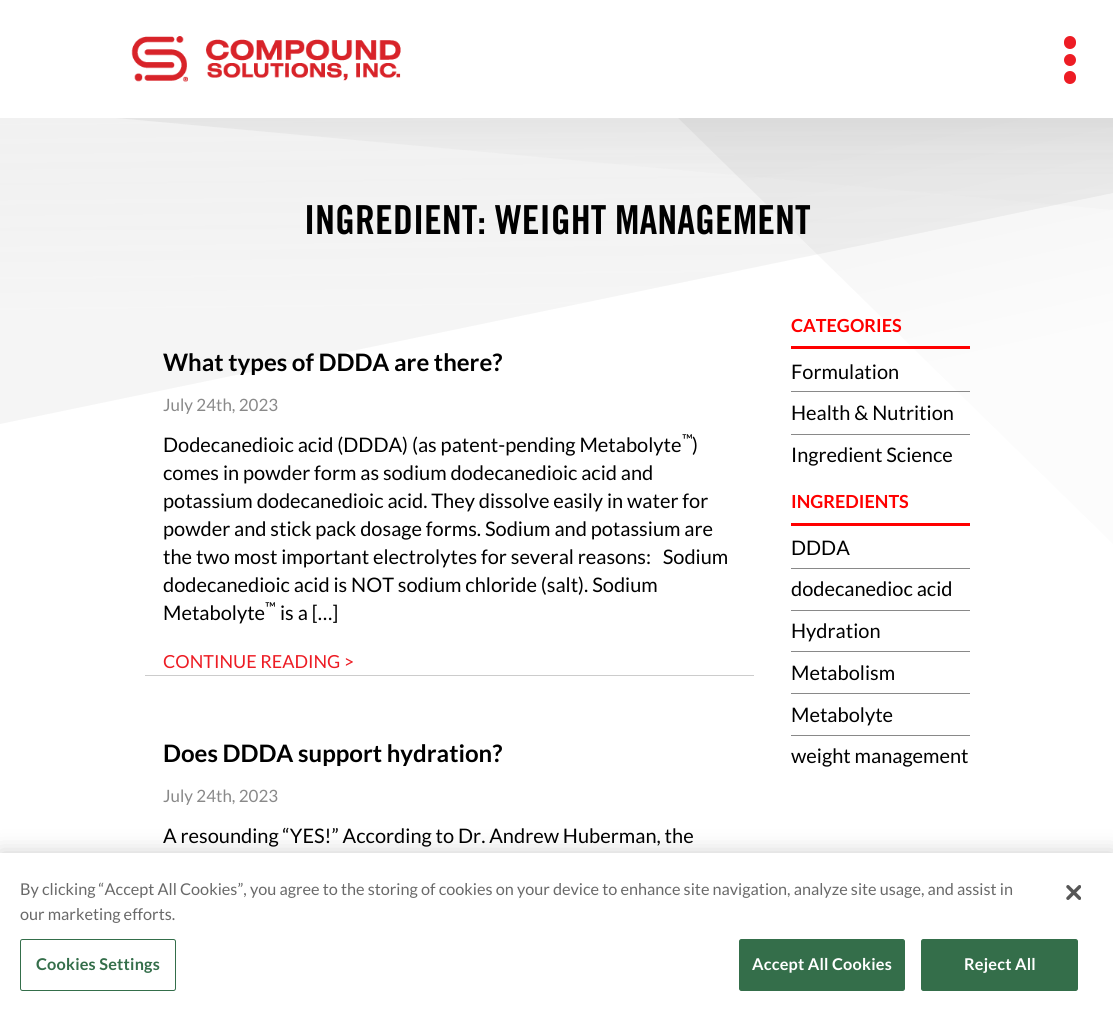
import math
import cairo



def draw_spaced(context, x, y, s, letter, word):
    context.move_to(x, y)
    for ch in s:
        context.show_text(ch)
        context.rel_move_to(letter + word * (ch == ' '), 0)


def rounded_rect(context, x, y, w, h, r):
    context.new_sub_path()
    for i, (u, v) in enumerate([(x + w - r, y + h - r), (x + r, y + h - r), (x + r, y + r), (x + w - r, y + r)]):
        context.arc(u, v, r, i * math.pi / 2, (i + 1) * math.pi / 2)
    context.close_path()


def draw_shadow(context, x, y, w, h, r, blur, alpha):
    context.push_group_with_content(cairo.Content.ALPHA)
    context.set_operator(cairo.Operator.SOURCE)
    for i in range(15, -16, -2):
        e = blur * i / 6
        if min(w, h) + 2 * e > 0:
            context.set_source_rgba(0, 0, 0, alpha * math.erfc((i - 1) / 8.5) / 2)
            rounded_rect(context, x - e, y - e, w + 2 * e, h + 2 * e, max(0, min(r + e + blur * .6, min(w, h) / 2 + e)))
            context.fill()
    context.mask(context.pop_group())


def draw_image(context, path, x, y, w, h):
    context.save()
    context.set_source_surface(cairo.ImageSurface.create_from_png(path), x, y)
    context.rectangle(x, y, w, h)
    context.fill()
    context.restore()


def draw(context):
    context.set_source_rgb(1, 1, 1)
    context.paint()
    draw_image(context, "images/1.png", 131, 36, 270, 46)
    context.set_source_rgb(237 / 255, 28 / 255, 36 / 255)
    context.arc(1070, 60, 6, 0, 2 * math.pi)
    context.fill()
    rounded_rect(context, 1064, 36, 12, 13, 6)
    context.fill()
    rounded_rect(context, 1064, 71, 12, 13, 6)
    context.fill()
    gradient = cairo.LinearGradient(909, 131, 962, 368)
    gradient.add_color_stop_rgba(0, 243 / 255, 243 / 255, 243 / 255, 1)
    gradient.add_color_stop_rgba(1, 252 / 255, 252 / 255, 252 / 255, 1)
    context.set_source(gradient)
    context.new_path()
    context.move_to(1113, 118)
    context.line_to(678, 118)
    context.line_to(1113, 544)
    context.close_path()
    context.fill()
    gradient = cairo.LinearGradient(557, 118, 559, 314)
    gradient.add_color_stop_rgba(0, 116 / 255, 116 / 255, 116 / 255, 0.1)
    gradient.add_color_stop_rgba(1, 64 / 255, 64 / 255, 64 / 255, 0.05)
    context.set_source(gradient)
    context.new_path()
    context.move_to(0, 118)
    context.line_to(1113, 118)
    context.line_to(1113, 193)
    context.line_to(0, 424)
    context.close_path()
    context.fill()
    gradient = cairo.LinearGradient(615, 118, 615, 177)
    gradient.add_color_stop_rgba(0, 124 / 255, 124 / 255, 124 / 255, 0.1)
    gradient.add_color_stop_rgba(1, 191 / 255, 191 / 255, 191 / 255, 0.05)
    context.set_source(gradient)
    context.new_path()
    context.move_to(1113, 118)
    context.line_to(116, 118)
    context.line_to(1113, 210)
    context.close_path()
    context.fill()
    context.set_source_rgb(204 / 255, 204 / 255, 204 / 255)
    context.rectangle(145, 675, 609, 1)
    context.fill()
    context.set_source_rgb(1, 0, 0)
    context.rectangle(791, 346, 179, 3)
    context.fill()
    context.set_source_rgb(137 / 255, 137 / 255, 137 / 255)
    context.rectangle(791, 391, 179, 1)
    context.fill()
    context.rectangle(791, 434, 179, 1)
    context.fill()
    context.set_source_rgb(1, 0, 0)
    context.rectangle(791, 523, 179, 3)
    context.fill()
    context.set_source_rgb(137 / 255, 137 / 255, 137 / 255)
    context.rectangle(791, 568, 179, 1)
    context.fill()
    context.rectangle(791, 610, 179, 1)
    context.fill()
    context.rectangle(791, 651, 179, 1)
    context.fill()
    context.rectangle(791, 693, 179, 1)
    context.fill()
    context.rectangle(791, 735, 179, 1)
    context.fill()
    context.set_source_rgb(0, 0, 0)
    draw_shadow(context, 0, 853, 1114, 162, 0, 11, 0.2)
    context.set_source_rgb(1, 1, 1)
    context.rectangle(0, 853, 1113, 162)
    context.fill()
    rounded_rect(context, 20.5, 939.5, 155, 51, 2)
    context.set_source_rgb(52 / 255, 110 / 255, 74 / 255)
    context.set_line_width(1)
    context.stroke()
    rounded_rect(context, 739.5, 939.5, 165, 51, 2)
    context.fill_preserve()
    context.stroke()
    rounded_rect(context, 921.5, 939.5, 156, 51, 2)
    context.fill_preserve()
    context.stroke()
    draw_image(context, "images/2.png", 1066, 885, 15, 15)
    context.select_font_face("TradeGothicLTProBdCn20")
    context.set_font_size(40)
    context.set_source_rgb(0, 0, 0)
    context.move_to(304, 234)
    context.show_text("INGREDIENT: WEIGHT MANAGEMENT")
    context.select_font_face("Lato", cairo.FontSlant.NORMAL, cairo.FontWeight.BOLD)
    context.set_font_size(24)
    context.move_to(163, 371)
    context.show_text("What types of DDDA are there?")
    context.select_font_face("Lato")
    context.set_font_size(17)
    context.set_source_rgb(137 / 255, 137 / 255, 137 / 255)
    context.move_to(163, 411)
    context.show_text("July 24th, 2023")
    context.set_font_size(20)
    context.set_source_rgb(0, 0, 0)
    context.move_to(163, 452)
    context.show_text("Dodecanedioic acid (DDDA) (as patent-pending Metabolyte")
    context.set_font_size(15)
    context.move_to(682, 445)
    context.show_text("™")
    context.set_font_size(20)
    context.move_to(692, 452)
    context.show_text(")")
    context.move_to(163, 480)
    context.show_text("comes in powder form as sodium dodecanedioic acid and")
    context.move_to(163, 508)
    context.show_text("potassium dodecanedioic acid. They dissolve easily in water for")
    context.move_to(163, 536)
    context.show_text("powder and stick pack dosage forms. Sodium and potassium are")
    context.move_to(163, 564)
    context.show_text("the two most important electrolytes for several reasons:   Sodium")
    context.move_to(163, 592)
    context.show_text("dodecanedioic acid is NOT sodium chloride (salt). Sodium")
    context.move_to(163, 620)
    context.show_text("Metabolyte")
    context.set_font_size(15)
    context.move_to(265, 613)
    context.show_text("™")
    context.set_font_size(20)
    context.move_to(280, 620)
    context.show_text("is a […]")
    context.set_font_size(18)
    context.set_source_rgb(237 / 255, 28 / 255, 36 / 255)
    context.move_to(163, 668)
    context.show_text("CONTINUE READING >")
    context.select_font_face("Lato", cairo.FontSlant.NORMAL, cairo.FontWeight.BOLD)
    context.set_font_size(24)
    context.set_source_rgb(0, 0, 0)
    context.move_to(163, 762)
    context.show_text("Does DDDA support hydration?")
    context.select_font_face("Lato")
    context.set_font_size(17)
    context.set_source_rgb(137 / 255, 137 / 255, 137 / 255)
    context.move_to(163, 802)
    context.show_text("July 24th, 2023")
    context.set_font_size(20)
    context.set_source_rgb(0, 0, 0)
    context.move_to(163, 843)
    context.show_text("A resounding “YES!” According to Dr. Andrew Huberman, the")
    context.select_font_face("Lato", cairo.FontSlant.NORMAL, cairo.FontWeight.BOLD)
    context.set_font_size(18)
    context.set_source_rgb(1, 0, 0)
    context.move_to(791, 332)
    context.show_text("CATEGORIES")
    context.select_font_face("Lato")
    context.set_font_size(20)
    context.set_source_rgb(0, 0, 0)
    context.move_to(791, 379)
    context.show_text("Formulation")
    context.move_to(791, 420)
    context.show_text("Health & Nutrition")
    context.move_to(791, 462)
    context.show_text("Ingredient Science")
    context.select_font_face("Lato", cairo.FontSlant.NORMAL, cairo.FontWeight.BOLD)
    context.set_font_size(18)
    context.set_source_rgb(1, 0, 0)
    context.move_to(791, 508)
    context.show_text("INGREDIENTS")
    context.select_font_face("Lato")
    context.set_font_size(20)
    context.set_source_rgb(0, 0, 0)
    context.move_to(791, 555)
    context.show_text("DDDA")
    context.move_to(791, 596)
    context.show_text("dodecanedioc acid")
    context.move_to(791, 638)
    context.show_text("Hydration")
    context.move_to(791, 680)
    context.show_text("Metabolism")
    context.move_to(791, 722)
    context.show_text("Metabolyte")
    context.move_to(791, 763)
    context.show_text("weight management")
    context.set_font_size(16.25)
    context.set_source_rgb(105 / 255, 105 / 255, 105 / 255)
    context.move_to(20, 895)
    context.show_text("By clicking “Accept All Cookies”, you agree to the storing of cookies on your device to enhance site navigation, analyze site usage, and assist in")
    context.move_to(20, 920)
    context.show_text("our marketing efforts.")
    context.select_font_face("Lato", cairo.FontSlant.NORMAL, cairo.FontWeight.BOLD)
    context.set_source_rgb(52 / 255, 110 / 255, 74 / 255)
    draw_spaced(context, 36, 970, "Cookies Settings", 0.2, 0)
    context.set_source_rgb(1, 1, 1)
    draw_spaced(context, 752, 970, "Accept All Cookies", 0.2, 0)
    draw_spaced(context, 964, 970, "Reject All", 0.2, 0)


surface = cairo.ImageSurface(cairo.Format.RGB24, 1113, 1015)
context = cairo.Context(surface)
options = cairo.FontOptions()
options.set_hint_metrics(cairo.HintMetrics.OFF)
options.set_hint_style(cairo.HintStyle.NONE)
context.set_font_options(options)
context.set_miter_limit(4)
draw(context)
surface.write_to_png("out.png")
